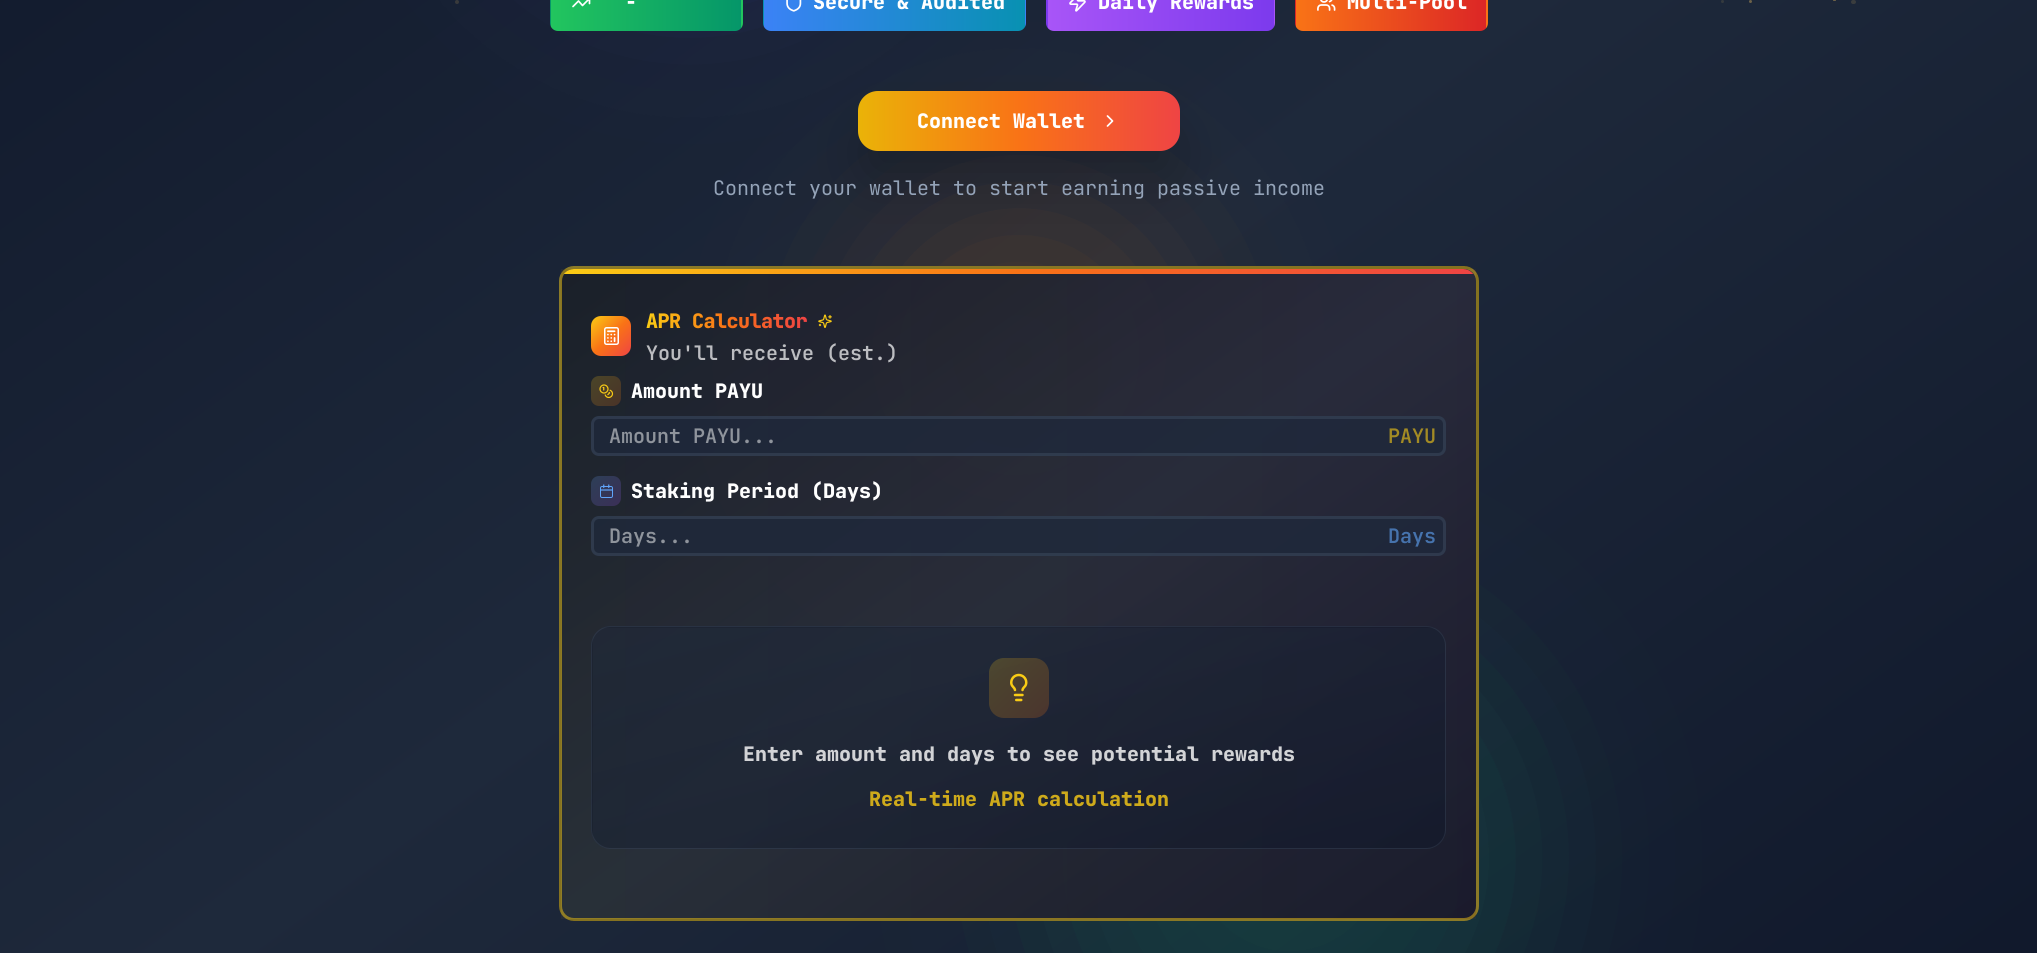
import math
import cairo



def draw_spaced(context, x, y, s, letter, word):
    context.move_to(x, y)
    for ch in s:
        context.show_text(ch)
        context.rel_move_to(letter + word * (ch == ' '), 0)


def rounded_rect(context, x, y, w, h, r):
    context.new_sub_path()
    for i, (u, v) in enumerate([(x + w - r, y + h - r), (x + r, y + h - r), (x + r, y + r), (x + w - r, y + r)]):
        context.arc(u, v, r, i * math.pi / 2, (i + 1) * math.pi / 2)
    context.close_path()


def draw_shadow(context, x, y, w, h, r, blur, alpha):
    context.push_group_with_content(cairo.Content.ALPHA)
    context.set_operator(cairo.Operator.SOURCE)
    for i in range(15, -16, -2):
        e = blur * i / 6
        if min(w, h) + 2 * e > 0:
            context.set_source_rgba(0, 0, 0, alpha * math.erfc((i - 1) / 8.5) / 2)
            rounded_rect(context, x - e, y - e, w + 2 * e, h + 2 * e, max(0, min(r + e + blur * .6, min(w, h) / 2 + e)))
            context.fill()
    context.mask(context.pop_group())


def draw_image(context, path, x, y, w, h):
    context.save()
    context.set_source_surface(cairo.ImageSurface.create_from_png(path), x, y)
    context.rectangle(x, y, w, h)
    context.fill()
    context.restore()


def draw(context):
    context.set_source_rgb(1, 1, 1)
    context.paint()
    gradient = cairo.LinearGradient(311, -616, 1726, 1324)
    gradient.add_color_stop_rgba(0, 15 / 255, 23 / 255, 42 / 255, 1)
    gradient.add_color_stop_rgba(0.5, 30 / 255, 41 / 255, 59 / 255, 1)
    gradient.add_color_stop_rgba(1, 15 / 255, 23 / 255, 42 / 255, 1)
    context.set_source(gradient)
    context.rectangle(0, 0, 2037, 953)
    context.fill()
    context.set_source_rgb(56 / 255, 57 / 255, 57 / 255)
    context.arc(457, 2, 2, 0, 2 * math.pi)
    context.fill()
    context.set_source_rgb(92 / 255, 75 / 255, 235 / 255)
    draw_shadow(context, 510, -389, 360, 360, 180, 80, 0.2)
    context.set_source_rgb(218 / 255, 113 / 255, 8 / 255)
    draw_shadow(context, 859, 195, 320, 320, 160, 80, 0.2)
    context.set_source_rgb(18 / 255, 156 / 255, 105 / 255)
    draw_shadow(context, 1049, 618, 480, 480, 240, 80, 0.2)
    context.set_source_rgb(53 / 255, 58 / 255, 62 / 255)
    context.arc(1722.5, 1.5, 1.5, 0, 2 * math.pi)
    context.fill()
    context.set_source_rgb(108 / 255, 97 / 255, 72 / 255)
    context.arc(1750.5, 1.5, 1.5, 0, 2 * math.pi)
    context.fill()
    context.set_source_rgb(109 / 255, 97 / 255, 72 / 255)
    rounded_rect(context, 1833, 0, 3, 1, 0.5)
    context.fill()
    context.set_source_rgb(58 / 255, 61 / 255, 62 / 255)
    rounded_rect(context, 1851, 0, 5, 4, 2)
    context.fill()
    context.save()
    rounded_rect(context, 550, -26, 193, 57, 8)
    context.clip()
    gradient = cairo.LinearGradient(361, 2.5, 551, 2.5)
    gradient.add_color_stop_rgba(0, 34 / 255, 197 / 255, 94 / 255, 1)
    gradient.add_color_stop_rgba(1, 5 / 255, 150 / 255, 105 / 255, 1)
    context.set_source(gradient)
    context.rectangle(550, 0, 1, 31)
    context.fill()
    gradient = cairo.LinearGradient(551, 2.5, 741, 2.5)
    gradient.add_color_stop_rgba(0, 34 / 255, 197 / 255, 94 / 255, 1)
    gradient.add_color_stop_rgba(1, 5 / 255, 150 / 255, 105 / 255, 1)
    context.set_source(gradient)
    context.rectangle(551, 0, 190, 31)
    context.fill()
    gradient = cairo.LinearGradient(741, 2.5, 931, 2.5)
    gradient.add_color_stop_rgba(0, 34 / 255, 197 / 255, 94 / 255, 1)
    gradient.add_color_stop_rgba(1, 5 / 255, 150 / 255, 105 / 255, 1)
    context.set_source(gradient)
    context.rectangle(741, 0, 2, 31)
    context.fill()
    context.restore()
    context.new_path()
    context.move_to(589.5, -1.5)
    context.line_to(582.5, 5.5)
    context.line_to(578.5, 1)
    context.line_to(573, 6.5)
    context.move_to(584.5, -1.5)
    context.line_to(589.5, -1.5)
    context.line_to(589.5, 3.5)
    context.set_source_rgb(1, 1, 1)
    context.set_line_width(1.7)
    context.set_line_cap(cairo.LineCap.ROUND)
    context.set_line_join(cairo.LineJoin.ROUND)
    context.stroke()
    context.save()
    rounded_rect(context, 763, -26, 263, 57, 8)
    context.clip()
    gradient = cairo.LinearGradient(503, 2.5, 764, 2.5)
    gradient.add_color_stop_rgba(0, 59 / 255, 130 / 255, 246 / 255, 1)
    gradient.add_color_stop_rgba(1, 8 / 255, 145 / 255, 178 / 255, 1)
    context.set_source(gradient)
    context.rectangle(763, 0, 1, 31)
    context.fill()
    gradient = cairo.LinearGradient(764, 2.5, 1025, 2.5)
    gradient.add_color_stop_rgba(0, 59 / 255, 130 / 255, 246 / 255, 1)
    gradient.add_color_stop_rgba(1, 8 / 255, 145 / 255, 178 / 255, 1)
    context.set_source(gradient)
    context.rectangle(764, 0, 261, 31)
    context.fill()
    gradient = cairo.LinearGradient(1025, 2.5, 1286, 2.5)
    gradient.add_color_stop_rgba(0, 59 / 255, 130 / 255, 246 / 255, 1)
    gradient.add_color_stop_rgba(1, 8 / 255, 145 / 255, 178 / 255, 1)
    context.set_source(gradient)
    context.rectangle(1025, 0, 1, 31)
    context.fill()
    context.restore()
    draw_image(context, "images/1.png", 786, 0, 16, 12)
    context.save()
    rounded_rect(context, 1046, -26, 229, 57, 8)
    context.clip()
    gradient = cairo.LinearGradient(821, 2.5, 1048, 2.5)
    gradient.add_color_stop_rgba(0, 168 / 255, 85 / 255, 247 / 255, 1)
    gradient.add_color_stop_rgba(1, 124 / 255, 58 / 255, 237 / 255, 1)
    context.set_source(gradient)
    context.rectangle(1046, 0, 2, 31)
    context.fill()
    gradient = cairo.LinearGradient(1048, 2.5, 1274, 2.5)
    gradient.add_color_stop_rgba(0, 168 / 255, 85 / 255, 247 / 255, 1)
    gradient.add_color_stop_rgba(1, 124 / 255, 58 / 255, 237 / 255, 1)
    context.set_source(gradient)
    context.rectangle(1048, 0, 226, 31)
    context.fill()
    gradient = cairo.LinearGradient(1274, 2.5, 1500, 2.5)
    gradient.add_color_stop_rgba(0, 168 / 255, 85 / 255, 247 / 255, 1)
    gradient.add_color_stop_rgba(1, 124 / 255, 58 / 255, 237 / 255, 1)
    context.set_source(gradient)
    context.rectangle(1274, 0, 1, 31)
    context.fill()
    context.restore()
    draw_image(context, "images/2.png", 1069, 0, 17, 12)
    context.save()
    rounded_rect(context, 1295, -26, 193, 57, 8)
    context.clip()
    gradient = cairo.LinearGradient(1106, 2.5, 1296, 2.5)
    gradient.add_color_stop_rgba(0, 249 / 255, 115 / 255, 22 / 255, 1)
    gradient.add_color_stop_rgba(1, 220 / 255, 38 / 255, 38 / 255, 1)
    context.set_source(gradient)
    context.rectangle(1295, 0, 1, 31)
    context.fill()
    gradient = cairo.LinearGradient(1296, 2.5, 1486, 2.5)
    gradient.add_color_stop_rgba(0, 249 / 255, 115 / 255, 22 / 255, 1)
    gradient.add_color_stop_rgba(1, 220 / 255, 38 / 255, 38 / 255, 1)
    context.set_source(gradient)
    context.rectangle(1296, 0, 190, 31)
    context.fill()
    gradient = cairo.LinearGradient(1486, 2.5, 1676, 2.5)
    gradient.add_color_stop_rgba(0, 249 / 255, 115 / 255, 22 / 255, 1)
    gradient.add_color_stop_rgba(1, 220 / 255, 38 / 255, 38 / 255, 1)
    context.set_source(gradient)
    context.rectangle(1486, 0, 2, 31)
    context.fill()
    context.restore()
    draw_image(context, "images/3.png", 1317, 0, 19, 11)
    context.set_source_rgb(0, 0, 0)
    draw_shadow(context, 873, 138, 292, 30, 5, 31, 0.25)
    gradient = cairo.LinearGradient(858, 121, 1180, 121)
    gradient.add_color_stop_rgba(0, 234 / 255, 179 / 255, 8 / 255, 1)
    gradient.add_color_stop_rgba(0.5, 249 / 255, 115 / 255, 22 / 255, 1)
    gradient.add_color_stop_rgba(1, 239 / 255, 68 / 255, 68 / 255, 1)
    context.set_source(gradient)
    rounded_rect(context, 858, 91, 322, 60, 20)
    context.fill()
    context.new_path()
    context.move_to(1107.5, 126)
    context.line_to(1112.5, 121)
    context.line_to(1107.5, 116)
    context.set_source_rgb(1, 1, 1)
    context.stroke()
    context.save()
    rounded_rect(context, 559, 266, 920, 655, 15)
    context.clip()
    gradient = cairo.LinearGradient(712, -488, 1326, 376)
    gradient.add_color_stop_rgba(0, 15 / 255, 23 / 255, 42 / 255, 0.95)
    gradient.add_color_stop_rgba(0.5, 30 / 255, 41 / 255, 59 / 255, 0.95)
    gradient.add_color_stop_rgba(1, 15 / 255, 23 / 255, 42 / 255, 0.95)
    context.set_source(gradient)
    context.rectangle(561, 266, 915, 3)
    context.fill()
    gradient = cairo.LinearGradient(-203, 162, 411, 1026)
    gradient.add_color_stop_rgba(0, 15 / 255, 23 / 255, 42 / 255, 0.95)
    gradient.add_color_stop_rgba(0.5, 30 / 255, 41 / 255, 59 / 255, 0.95)
    gradient.add_color_stop_rgba(1, 15 / 255, 23 / 255, 42 / 255, 0.95)
    context.set_source(gradient)
    context.rectangle(559, 269, 2, 650)
    context.fill()
    gradient = cairo.LinearGradient(712, 162, 1326, 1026)
    gradient.add_color_stop_rgba(0, 15 / 255, 23 / 255, 42 / 255, 0.95)
    gradient.add_color_stop_rgba(0.5, 30 / 255, 41 / 255, 59 / 255, 0.95)
    gradient.add_color_stop_rgba(1, 15 / 255, 23 / 255, 42 / 255, 0.95)
    context.set_source(gradient)
    context.rectangle(561, 269, 915, 650)
    context.fill()
    gradient = cairo.LinearGradient(1627, 162, 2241, 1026)
    gradient.add_color_stop_rgba(0, 15 / 255, 23 / 255, 42 / 255, 0.95)
    gradient.add_color_stop_rgba(0.5, 30 / 255, 41 / 255, 59 / 255, 0.95)
    gradient.add_color_stop_rgba(1, 15 / 255, 23 / 255, 42 / 255, 0.95)
    context.set_source(gradient)
    context.rectangle(1476, 269, 3, 650)
    context.fill()
    gradient = cairo.LinearGradient(712, 812, 1326, 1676)
    gradient.add_color_stop_rgba(0, 15 / 255, 23 / 255, 42 / 255, 0.95)
    gradient.add_color_stop_rgba(0.5, 30 / 255, 41 / 255, 59 / 255, 0.95)
    gradient.add_color_stop_rgba(1, 15 / 255, 23 / 255, 42 / 255, 0.95)
    context.set_source(gradient)
    context.rectangle(561, 919, 915, 2)
    context.fill()
    context.restore()
    rounded_rect(context, 560.5, 267.5, 917, 652, 13.5)
    context.set_source_rgba(250 / 255, 204 / 255, 21 / 255, 0.5)
    context.set_line_width(3)
    context.set_line_cap(cairo.LineCap.BUTT)
    context.set_line_join(cairo.LineJoin.MITER)
    context.stroke()
    gradient = cairo.LinearGradient(561, 594, 1476, 594)
    gradient.add_color_stop_rgba(0, 234 / 255, 179 / 255, 8 / 255, 0.05)
    gradient.add_color_stop_rgba(0.5, 249 / 255, 115 / 255, 22 / 255, 0.05)
    gradient.add_color_stop_rgba(1, 239 / 255, 68 / 255, 68 / 255, 0.05)
    context.set_source(gradient)
    context.rectangle(561, 269, 915, 650)
    context.fill()
    context.save()
    rounded_rect(context, 561, 269, 915, 650, 13)
    context.clip()
    gradient = cairo.LinearGradient(561, 271, 1476, 271)
    gradient.add_color_stop_rgba(0, 250 / 255, 204 / 255, 21 / 255, 1)
    gradient.add_color_stop_rgba(0.5, 249 / 255, 115 / 255, 22 / 255, 1)
    gradient.add_color_stop_rgba(1, 239 / 255, 68 / 255, 68 / 255, 1)
    context.set_source(gradient)
    context.rectangle(561, 269, 915, 5)
    context.fill()
    context.restore()
    gradient = cairo.LinearGradient(591, 316, 631, 356)
    gradient.add_color_stop_rgba(0, 250 / 255, 204 / 255, 21 / 255, 1)
    gradient.add_color_stop_rgba(0.5, 249 / 255, 115 / 255, 22 / 255, 1)
    gradient.add_color_stop_rgba(1, 239 / 255, 68 / 255, 68 / 255, 1)
    context.set_source(gradient)
    rounded_rect(context, 591, 316, 40, 40, 10)
    context.fill()
    draw_image(context, "images/4.png", 604, 327, 15, 18)
    draw_image(context, "images/5.png", 818, 314, 14, 14)
    gradient = cairo.LinearGradient(591, 376, 621, 406)
    gradient.add_color_stop_rgba(0, 74 / 255, 69 / 255, 40 / 255, 1)
    gradient.add_color_stop_rgba(1, 74 / 255, 51 / 255, 40 / 255, 1)
    context.set_source(gradient)
    rounded_rect(context, 591, 376, 30, 30, 8)
    context.fill()
    draw_image(context, "images/6.png", 599, 384, 15, 15)
    context.set_source_rgba(30 / 255, 41 / 255, 59 / 255, 0.8)
    rounded_rect(context, 591, 416, 855, 40, 8)
    context.fill()
    rounded_rect(context, 592.5, 417.5, 852, 37, 6.5)
    context.set_source_rgba(71 / 255, 85 / 255, 105 / 255, 0.4)
    context.stroke()
    gradient = cairo.LinearGradient(591, 476, 621, 506)
    gradient.add_color_stop_rgba(0, 45 / 255, 63 / 255, 87 / 255, 1)
    gradient.add_color_stop_rgba(1, 59 / 255, 47 / 255, 87 / 255, 1)
    context.set_source(gradient)
    rounded_rect(context, 591, 476, 30, 30, 8)
    context.fill()
    draw_image(context, "images/7.png", 600, 484, 13, 14)
    context.set_source_rgba(30 / 255, 41 / 255, 59 / 255, 0.8)
    rounded_rect(context, 591, 516, 855, 40, 8)
    context.fill()
    rounded_rect(context, 592.5, 517.5, 852, 37, 6.5)
    context.set_source_rgba(71 / 255, 85 / 255, 105 / 255, 0.4)
    context.stroke()
    context.save()
    rounded_rect(context, 591, 626, 855, 223, 20)
    context.clip()
    gradient = cairo.LinearGradient(966, 311, 1072, 724)
    gradient.add_color_stop_rgba(0, 30 / 255, 41 / 255, 59 / 255, 0.5)
    gradient.add_color_stop_rgba(1, 15 / 255, 23 / 255, 42 / 255, 0.5)
    context.set_source(gradient)
    context.rectangle(602, 626, 833, 2)
    context.fill()
    gradient = cairo.LinearGradient(113, 531, 219, 944)
    gradient.add_color_stop_rgba(0, 30 / 255, 41 / 255, 59 / 255, 0.5)
    gradient.add_color_stop_rgba(1, 15 / 255, 23 / 255, 42 / 255, 0.5)
    context.set_source(gradient)
    context.rectangle(591, 637, 2, 201)
    context.fill()
    gradient = cairo.LinearGradient(966, 531, 1072, 944)
    gradient.add_color_stop_rgba(0, 30 / 255, 41 / 255, 59 / 255, 0.5)
    gradient.add_color_stop_rgba(1, 15 / 255, 23 / 255, 42 / 255, 0.5)
    context.set_source(gradient)
    context.rectangle(593, 628, 852, 220)
    context.fill()
    gradient = cairo.LinearGradient(1818, 531, 1924, 944)
    gradient.add_color_stop_rgba(0, 30 / 255, 41 / 255, 59 / 255, 0.5)
    gradient.add_color_stop_rgba(1, 15 / 255, 23 / 255, 42 / 255, 0.5)
    context.set_source(gradient)
    context.rectangle(1445, 640, 1, 195)
    context.fill()
    gradient = cairo.LinearGradient(966, 751, 1072, 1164)
    gradient.add_color_stop_rgba(0, 30 / 255, 41 / 255, 59 / 255, 0.5)
    gradient.add_color_stop_rgba(1, 15 / 255, 23 / 255, 42 / 255, 0.5)
    context.set_source(gradient)
    context.rectangle(605, 848, 827, 1)
    context.fill()
    context.restore()
    rounded_rect(context, 591.5, 626.5, 854, 222, 19.5)
    context.set_source_rgba(71 / 255, 85 / 255, 105 / 255, 0.3)
    context.set_line_width(1)
    context.stroke()
    gradient = cairo.LinearGradient(989, 658, 1049, 718)
    gradient.add_color_stop_rgba(0, 250 / 255, 204 / 255, 21 / 255, 0.2)
    gradient.add_color_stop_rgba(1, 249 / 255, 115 / 255, 22 / 255, 0.2)
    context.set_source(gradient)
    rounded_rect(context, 989, 658, 60, 60, 15)
    context.fill()
    draw_image(context, "images/8.png", 1010, 673, 18, 29)
    context.select_font_face("JetBrains Mono ExtraBold")
    context.set_font_size(20)
    context.set_source_rgb(1, 1, 1)
    context.move_to(625, 9)
    context.show_text("-")
    context.move_to(813, 9)
    context.show_text("Secure & Audited")
    context.move_to(1098, 9)
    context.show_text("Daily Rewards")
    context.move_to(1347, 9)
    context.show_text("Multi-Pool")
    context.move_to(917, 128)
    context.show_text("Connect Wallet")
    context.select_font_face("JetBrains Mono")
    context.set_source_rgb(148 / 255, 163 / 255, 184 / 255)
    context.move_to(713, 195)
    context.show_text("Connect your wallet to start earning passive income")
    context.select_font_face("JetBrains Mono ExtraBold")
    gradient = cairo.LinearGradient(646, 321, 807, 321)
    gradient.add_color_stop_rgba(0, 250 / 255, 204 / 255, 21 / 255, 1)
    gradient.add_color_stop_rgba(0.5, 249 / 255, 115 / 255, 22 / 255, 1)
    gradient.add_color_stop_rgba(1, 239 / 255, 68 / 255, 68 / 255, 1)
    context.set_source(gradient)
    draw_spaced(context, 646, 328, "APR Calculator", -0.5, 0)
    context.select_font_face("JetBrains Mono SemiBold")
    context.set_source_rgb(188 / 255, 189 / 255, 193 / 255)
    context.move_to(646, 360)
    context.show_text("You'll receive (est.)")
    context.select_font_face("JetBrains Mono ExtraBold")
    context.set_source_rgb(1, 1, 1)
    context.move_to(631, 398)
    context.show_text("Amount PAYU")
    context.select_font_face("JetBrains Mono SemiBold")
    context.set_source_rgb(143 / 255, 148 / 255, 156 / 255)
    context.move_to(609, 443)
    context.show_text("Amount PAYU...")
    context.set_source_rgb(163 / 255, 139 / 255, 36 / 255)
    context.move_to(1388, 443)
    context.show_text("PAYU")
    context.select_font_face("JetBrains Mono ExtraBold")
    context.set_source_rgb(1, 1, 1)
    context.move_to(631, 498)
    context.show_text("Staking Period (Days)")
    context.select_font_face("JetBrains Mono SemiBold")
    context.set_source_rgb(143 / 255, 148 / 255, 156 / 255)
    context.move_to(609, 543)
    context.show_text("Days...")
    context.set_source_rgb(70 / 255, 115 / 255, 173 / 255)
    context.move_to(1388, 543)
    context.show_text("Days")
    context.select_font_face("JetBrains Mono ExtraBold")
    context.set_source_rgb(210 / 255, 211 / 255, 214 / 255)
    context.move_to(743, 761)
    context.show_text("Enter amount and days to see potential rewards")
    context.set_source_rgb(206 / 255, 170 / 255, 27 / 255)
    context.move_to(869, 806)
    context.show_text("Real-time APR calculation")


surface = cairo.ImageSurface(cairo.Format.RGB24, 2037, 953)
context = cairo.Context(surface)
options = cairo.FontOptions()
options.set_hint_metrics(cairo.HintMetrics.OFF)
options.set_hint_style(cairo.HintStyle.NONE)
context.set_font_options(options)
context.set_miter_limit(4)
draw(context)
surface.write_to_png("out.png")
